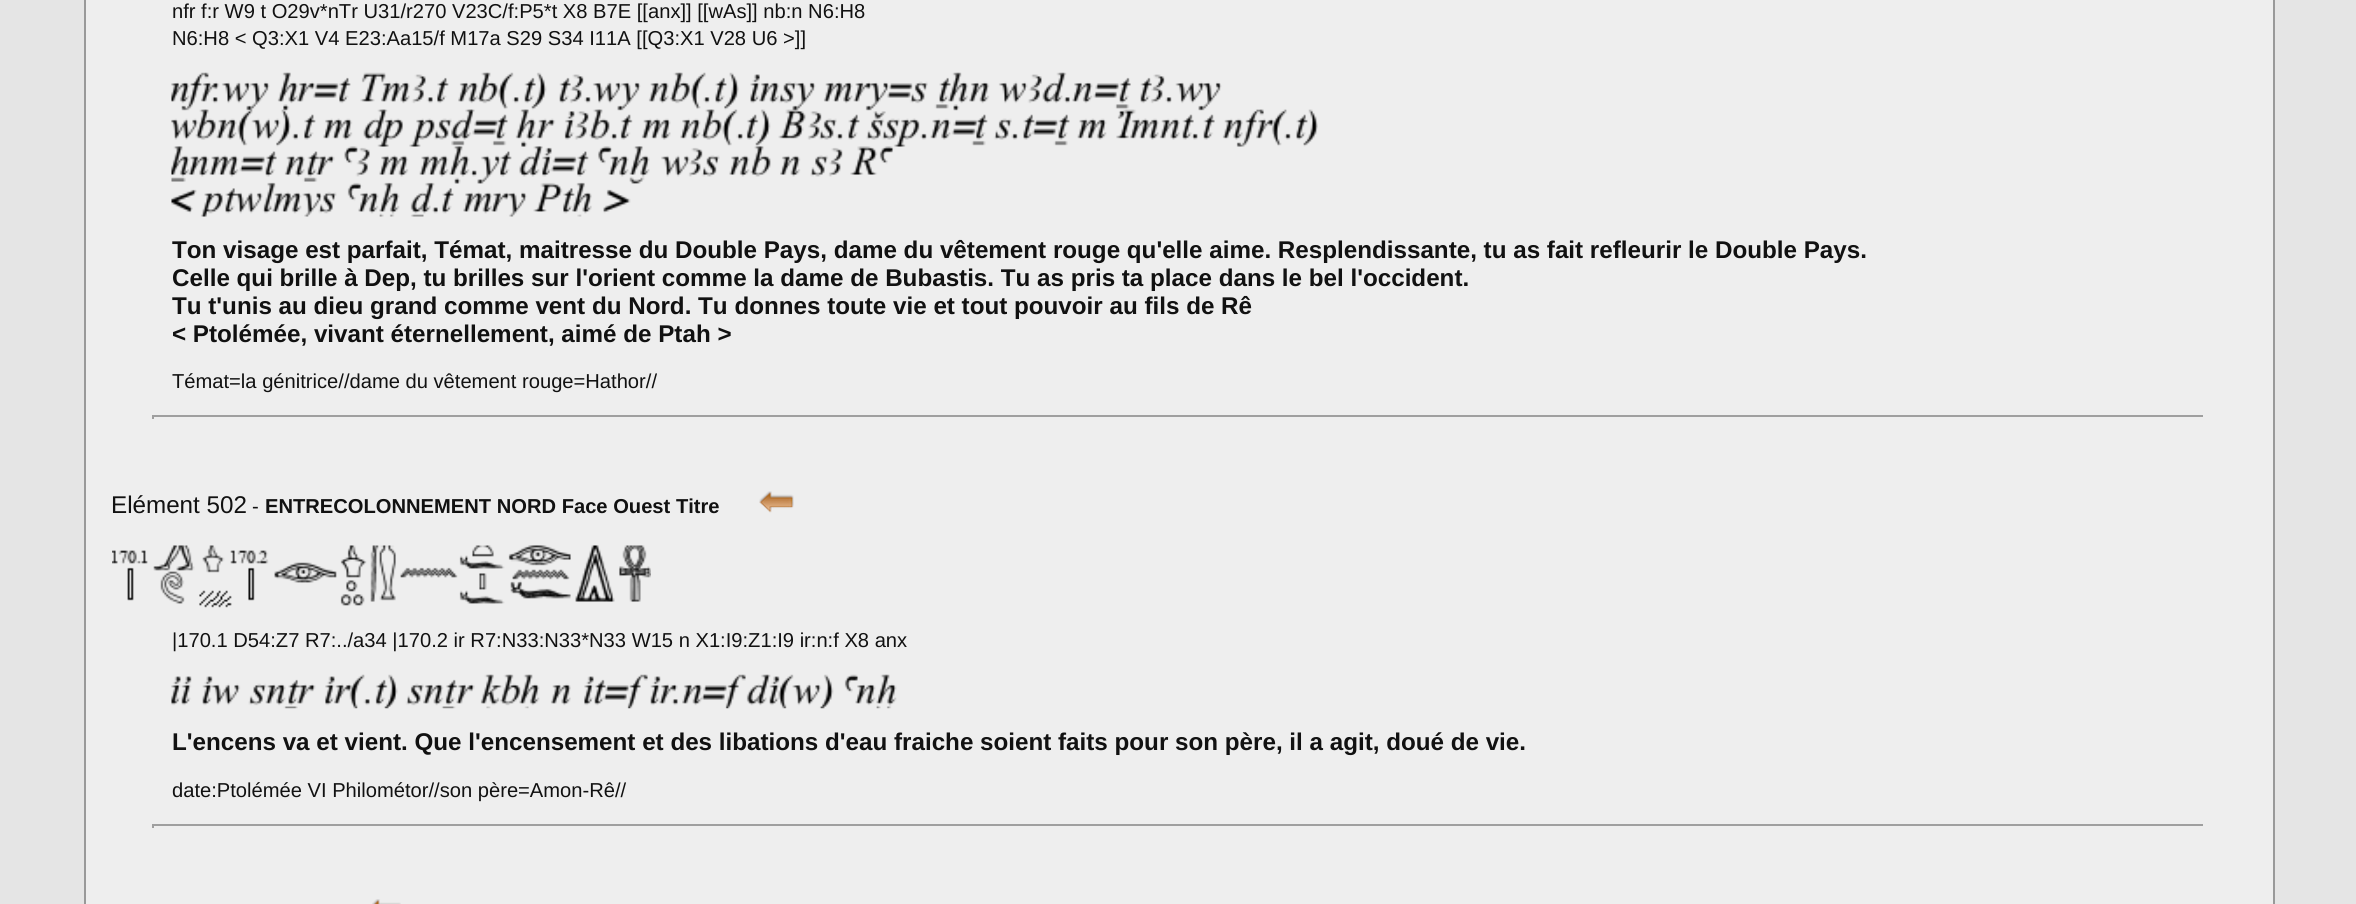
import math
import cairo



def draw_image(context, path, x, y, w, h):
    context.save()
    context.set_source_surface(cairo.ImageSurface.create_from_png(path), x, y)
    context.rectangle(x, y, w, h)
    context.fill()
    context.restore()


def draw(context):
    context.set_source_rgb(229 / 255, 229 / 255, 229 / 255)
    context.paint()
    context.set_source_rgb(238 / 255, 238 / 255, 238 / 255)
    context.rectangle(85, -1, 2189, 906)
    context.fill_preserve()
    context.set_source_rgb(153 / 255, 153 / 255, 153 / 255)
    context.stroke()
    draw_image(context, "images/1.png", 171, 72, 1147, 145)
    context.set_source_rgb(159 / 255, 159 / 255, 159 / 255)
    context.rectangle(152, 415, 2053, 2)
    context.fill()
    context.set_source_rgb(238 / 255, 238 / 255, 238 / 255)
    context.rectangle(2203, 415, 2, 4)
    context.fill()
    context.set_source_rgb(159 / 255, 159 / 255, 159 / 255)
    context.rectangle(152, 415, 2, 4)
    context.fill()
    draw_image(context, "images/2.png", 759, 491, 35, 22)
    draw_image(context, "images/3.png", 112, 545, 539, 63)
    draw_image(context, "images/4.png", 171, 674, 726, 35)
    context.rectangle(152, 824, 2053, 2)
    context.fill()
    context.set_source_rgb(238 / 255, 238 / 255, 238 / 255)
    context.rectangle(2203, 824, 2, 4)
    context.fill()
    context.set_source_rgb(159 / 255, 159 / 255, 159 / 255)
    context.rectangle(152, 824, 2, 4)
    context.fill()
    draw_image(context, "images/5.png", 372, 899, 29, 5)
    context.select_font_face("Liberation Sans")
    context.set_font_size(20.15)
    context.set_source_rgb(17 / 255, 17 / 255, 17 / 255)
    context.move_to(172, 18)
    context.show_text("nfr f:r W9 t O29v*nTr U31/r270 V23C/f:P5*t X8 B7E [[anx]] [[wAs]] nb:n N6:H8")
    context.move_to(172, 45)
    context.show_text("N6:H8 < Q3:X1 V4 E23:Aa15/f M17a S29 S34 I11A [[Q3:X1 V28 U6 >]]")
    context.select_font_face("Liberation Sans", cairo.FontSlant.NORMAL, cairo.FontWeight.BOLD)
    context.set_font_size(24.2)
    context.move_to(172, 258)
    context.show_text("Ton visage est parfait, Témat, maitresse du Double Pays, dame du vêtement rouge qu'elle aime. Resplendissante, tu as fait refleurir le Double Pays.")
    context.move_to(172, 286)
    context.show_text("Celle qui brille à Dep, tu brilles sur l'orient comme la dame de Bubastis. Tu as pris ta place dans le bel l'occident.")
    context.move_to(172, 314)
    context.show_text("Tu t'unis au dieu grand comme vent du Nord. Tu donnes toute vie et tout pouvoir au fils de Rê")
    context.move_to(172, 342)
    context.show_text("< Ptolémée, vivant éternellement, aimé de Ptah >")
    context.select_font_face("Liberation Sans")
    context.set_font_size(20.15)
    context.move_to(172, 388)
    context.show_text("Témat=la génitrice//dame du vêtement rouge=Hathor//")
    context.set_font_size(24.2)
    context.move_to(111, 513)
    context.show_text("Elément 502")
    context.set_font_size(20.15)
    context.move_to(252, 513)
    context.show_text("-")
    context.select_font_face("Liberation Sans", cairo.FontSlant.NORMAL, cairo.FontWeight.BOLD)
    context.move_to(265, 513)
    context.show_text("ENTRECOLONNEMENT NORD Face Ouest Titre")
    context.select_font_face("Liberation Sans")
    context.move_to(172, 647)
    context.show_text("|170.1 D54:Z7 R7:../a34 |170.2 ir R7:N33:N33*N33 W15 n X1:I9:Z1:I9 ir:n:f X8 anx")
    context.select_font_face("Liberation Sans", cairo.FontSlant.NORMAL, cairo.FontWeight.BOLD)
    context.set_font_size(24.2)
    context.move_to(172, 750)
    context.show_text("L'encens va et vient. Que l'encensement et des libations d'eau fraiche soient faits pour son père, il a agit, doué de vie.")
    context.select_font_face("Liberation Sans")
    context.set_font_size(20.15)
    context.move_to(172, 797)
    context.show_text("date:Ptolémée VI Philométor//son père=Amon-Rê//")


surface = cairo.ImageSurface(cairo.Format.RGB24, 2356, 904)
context = cairo.Context(surface)
options = cairo.FontOptions()
options.set_hint_metrics(cairo.HintMetrics.OFF)
options.set_hint_style(cairo.HintStyle.NONE)
context.set_font_options(options)
context.set_miter_limit(4)
draw(context)
surface.write_to_png("out.png")
